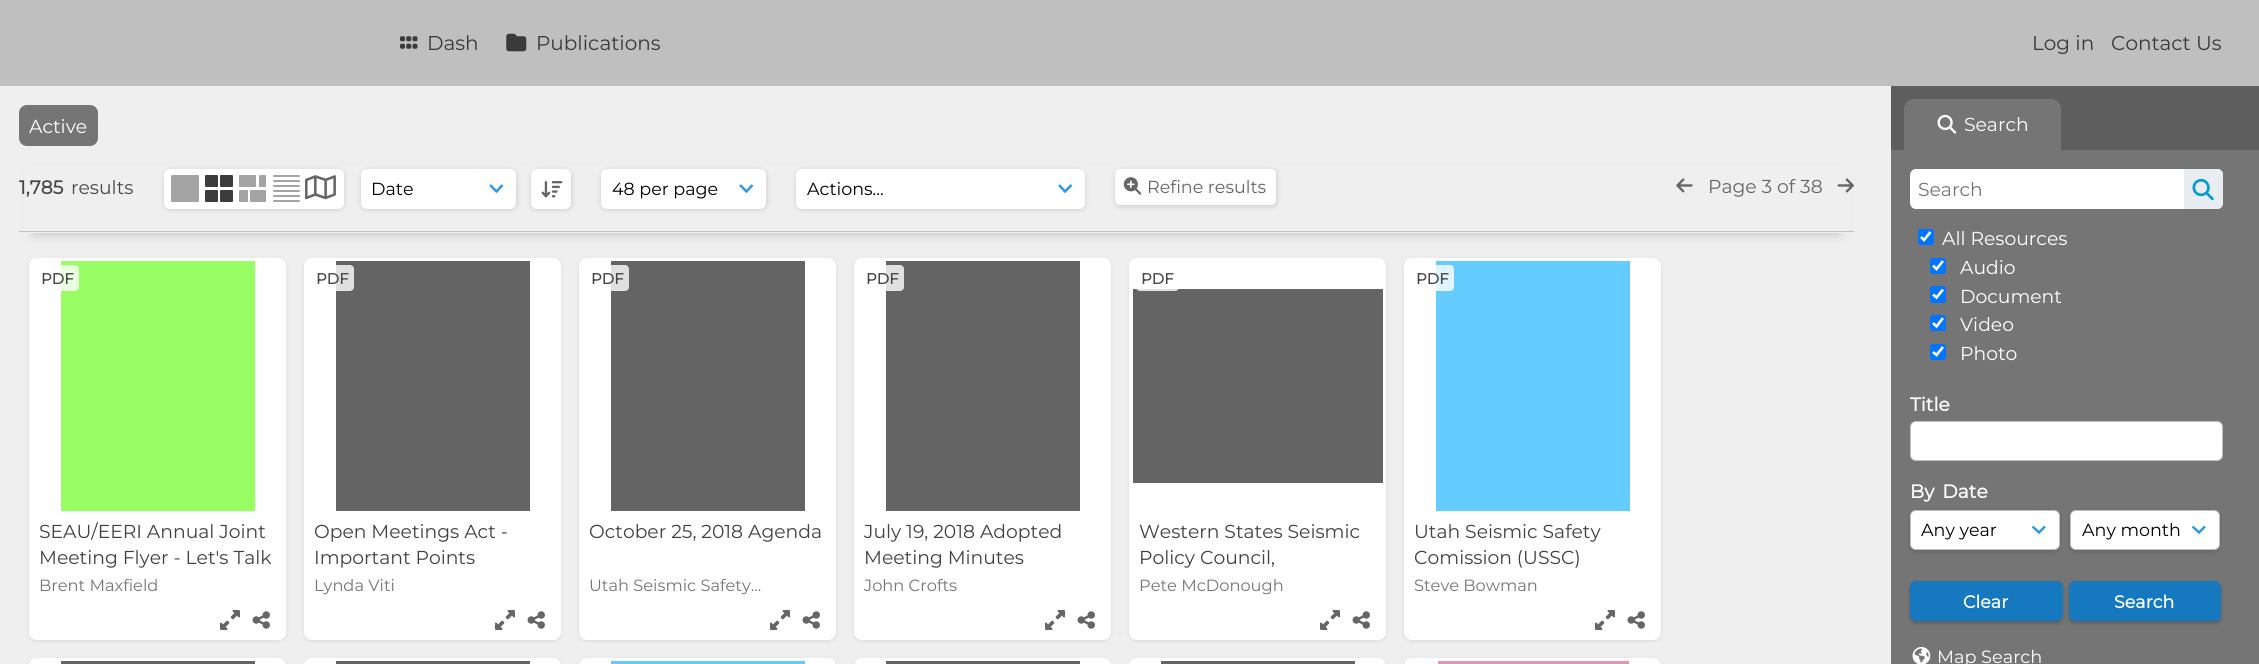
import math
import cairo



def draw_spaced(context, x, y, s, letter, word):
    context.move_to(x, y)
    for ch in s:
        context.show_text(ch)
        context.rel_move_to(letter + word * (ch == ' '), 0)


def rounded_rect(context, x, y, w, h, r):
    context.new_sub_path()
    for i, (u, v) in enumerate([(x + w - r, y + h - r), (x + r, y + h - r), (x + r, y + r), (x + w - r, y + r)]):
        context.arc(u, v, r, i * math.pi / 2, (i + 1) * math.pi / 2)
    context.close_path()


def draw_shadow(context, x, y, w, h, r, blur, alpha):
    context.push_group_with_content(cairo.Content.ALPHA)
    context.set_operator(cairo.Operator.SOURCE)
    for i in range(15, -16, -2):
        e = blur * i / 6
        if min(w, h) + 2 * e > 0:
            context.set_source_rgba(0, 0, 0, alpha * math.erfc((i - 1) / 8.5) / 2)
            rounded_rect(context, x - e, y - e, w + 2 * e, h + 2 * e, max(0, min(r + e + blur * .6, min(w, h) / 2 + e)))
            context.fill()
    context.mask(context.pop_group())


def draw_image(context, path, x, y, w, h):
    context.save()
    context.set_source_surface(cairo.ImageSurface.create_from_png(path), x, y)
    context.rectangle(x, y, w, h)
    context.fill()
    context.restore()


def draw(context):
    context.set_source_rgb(239 / 255, 239 / 255, 239 / 255)
    context.paint()
    context.set_source_rgb(192 / 255, 191 / 255, 191 / 255)
    context.rectangle(0, 0, 2259, 86)
    context.fill()
    draw_image(context, "images/1.png", 400, 36, 18, 13)
    draw_image(context, "images/2.png", 506, 33, 21, 19)
    context.set_source_rgb(117 / 255, 117 / 255, 117 / 255)
    rounded_rect(context, 19, 105, 79, 41, 8)
    context.fill()
    context.set_source_rgb(187 / 255, 187 / 255, 187 / 255)
    draw_shadow(context, 34, 176, 1805, 57, 0, 6, 1)
    context.set_source_rgb(239 / 255, 239 / 255, 239 / 255)
    context.rectangle(24, 166, 1825, 67)
    context.fill()
    context.set_source_rgb(193 / 255, 193 / 255, 193 / 255)
    context.rectangle(19, 231, 1835, 1)
    context.fill()
    context.set_source_rgb(0, 0, 0)
    draw_shadow(context, 163, 169, 182, 42, 8, 2, 0.1)
    context.set_source_rgb(1, 1, 1)
    rounded_rect(context, 164, 169, 180, 40, 6)
    context.fill()
    context.set_source_rgb(164 / 255, 164 / 255, 164 / 255)
    rounded_rect(context, 171, 175, 28, 27, 1)
    context.fill()
    context.set_source_rgb(60 / 255, 60 / 255, 60 / 255)
    rounded_rect(context, 220, 175, 13, 12, 1)
    context.fill()
    rounded_rect(context, 205, 190, 13, 12, 1)
    context.fill()
    rounded_rect(context, 220, 190, 13, 12, 1)
    context.fill()
    rounded_rect(context, 205, 175, 13, 12, 1)
    context.fill()
    context.set_source_rgb(164 / 255, 164 / 255, 164 / 255)
    rounded_rect(context, 239, 175, 17, 12, 1)
    context.fill()
    rounded_rect(context, 259, 175, 7, 12, 1)
    context.fill()
    rounded_rect(context, 250, 190, 16, 12, 1)
    context.fill()
    rounded_rect(context, 239, 190, 9, 12, 1)
    context.fill()
    draw_image(context, "images/3.png", 273, 175, 27, 27)
    draw_image(context, "images/4.png", 305, 175, 31, 25)
    context.set_source_rgb(0, 0, 0)
    draw_shadow(context, 360, 169, 158, 42, 8, 2, 0.1)
    context.set_source_rgb(1, 1, 1)
    rounded_rect(context, 361, 169, 155, 40, 6)
    context.fill()
    context.new_path()
    context.move_to(502.5, 185)
    context.line_to(496.5, 191.5)
    context.line_to(490, 185)
    context.set_source_rgb(46 / 255, 153 / 255, 230 / 255)
    context.set_line_width(2.5)
    context.stroke()
    context.set_source_rgb(0, 0, 0)
    draw_shadow(context, 530, 169, 43, 42, 8, 2, 0.1)
    context.set_source_rgb(1, 1, 1)
    rounded_rect(context, 531, 169, 40, 40, 6)
    context.fill()
    draw_image(context, "images/5.png", 541, 181, 22, 17)
    context.set_source_rgb(0, 0, 0)
    draw_shadow(context, 600, 169, 168, 42, 8, 2, 0.1)
    context.set_source_rgb(1, 1, 1)
    rounded_rect(context, 601, 169, 165, 40, 6)
    context.fill()
    context.new_path()
    context.move_to(752.5, 185)
    context.line_to(746.5, 191.5)
    context.line_to(740, 185)
    context.set_source_rgb(46 / 255, 153 / 255, 230 / 255)
    context.stroke()
    context.set_source_rgb(0, 0, 0)
    draw_shadow(context, 795, 169, 291, 42, 8, 2, 0.1)
    context.set_source_rgb(1, 1, 1)
    rounded_rect(context, 796, 169, 289, 40, 6)
    context.fill()
    context.new_path()
    context.move_to(1071.5, 185)
    context.line_to(1065, 191.5)
    context.line_to(1059, 185)
    context.set_source_rgb(46 / 255, 153 / 255, 230 / 255)
    context.stroke()
    context.set_source_rgb(0, 0, 0)
    draw_shadow(context, 1114, 169, 164, 39, 6, 2, 0.1)
    context.set_source_rgb(1, 1, 1)
    rounded_rect(context, 1115, 169, 161, 36, 5)
    context.fill()
    draw_image(context, "images/6.png", 1123, 177, 19, 18)
    draw_image(context, "images/7.png", 1676, 178, 17, 15)
    draw_image(context, "images/8.png", 1837, 178, 17, 15)
    context.set_source_rgb(0, 0, 0)
    draw_shadow(context, 29, 259, 257, 382, 8, 2, 0.1)
    context.set_source_rgb(1, 1, 1)
    rounded_rect(context, 29, 258, 257, 382, 8)
    context.fill()
    context.set_source_rgb(151 / 255, 1, 100 / 255)
    context.rectangle(61, 261, 194, 250)
    context.fill()
    context.set_source_rgba(1, 1, 1, 0.8)
    rounded_rect(context, 36, 265, 43, 26, 4)
    context.fill()
    draw_image(context, "images/9.png", 220, 610, 20, 20)
    draw_image(context, "images/10.png", 252, 611, 18, 18)
    context.set_source_rgb(0, 0, 0)
    draw_shadow(context, 304, 259, 257, 382, 8, 2, 0.1)
    context.set_source_rgb(1, 1, 1)
    rounded_rect(context, 304, 258, 257, 382, 8)
    context.fill()
    context.set_source_rgb(100 / 255, 100 / 255, 100 / 255)
    context.rectangle(336, 261, 194, 250)
    context.fill()
    context.set_source_rgba(1, 1, 1, 0.8)
    rounded_rect(context, 311, 265, 43, 26, 4)
    context.fill()
    draw_image(context, "images/9.png", 495, 610, 20, 20)
    draw_image(context, "images/10.png", 527, 611, 18, 18)
    context.set_source_rgb(0, 0, 0)
    draw_shadow(context, 579, 259, 257, 382, 8, 2, 0.1)
    context.set_source_rgb(1, 1, 1)
    rounded_rect(context, 579, 258, 257, 382, 8)
    context.fill()
    context.set_source_rgb(100 / 255, 100 / 255, 100 / 255)
    context.rectangle(611, 261, 194, 250)
    context.fill()
    context.set_source_rgba(1, 1, 1, 0.8)
    rounded_rect(context, 586, 265, 43, 26, 4)
    context.fill()
    draw_image(context, "images/9.png", 770, 610, 20, 20)
    draw_image(context, "images/10.png", 802, 611, 18, 18)
    context.set_source_rgb(0, 0, 0)
    draw_shadow(context, 854, 259, 257, 382, 8, 2, 0.1)
    context.set_source_rgb(1, 1, 1)
    rounded_rect(context, 854, 258, 257, 382, 8)
    context.fill()
    context.set_source_rgb(100 / 255, 100 / 255, 100 / 255)
    context.rectangle(886, 261, 194, 250)
    context.fill()
    context.set_source_rgba(1, 1, 1, 0.8)
    rounded_rect(context, 861, 265, 43, 26, 4)
    context.fill()
    draw_image(context, "images/9.png", 1045, 610, 20, 20)
    draw_image(context, "images/10.png", 1077, 611, 18, 18)
    context.set_source_rgb(0, 0, 0)
    draw_shadow(context, 1129, 259, 257, 382, 8, 2, 0.1)
    context.set_source_rgb(1, 1, 1)
    rounded_rect(context, 1129, 258, 257, 382, 8)
    context.fill()
    context.set_source_rgb(100 / 255, 100 / 255, 100 / 255)
    context.rectangle(1133, 289, 250, 194)
    context.fill()
    context.set_source_rgba(1, 1, 1, 0.8)
    rounded_rect(context, 1136, 265, 43, 26, 4)
    context.fill()
    draw_image(context, "images/9.png", 1320, 610, 20, 20)
    draw_image(context, "images/10.png", 1352, 611, 18, 18)
    context.set_source_rgb(0, 0, 0)
    draw_shadow(context, 1404, 259, 257, 382, 8, 2, 0.1)
    context.set_source_rgb(1, 1, 1)
    rounded_rect(context, 1404, 258, 257, 382, 8)
    context.fill()
    context.set_source_rgb(100 / 255, 204 / 255, 1)
    context.rectangle(1436, 261, 194, 250)
    context.fill()
    context.set_source_rgba(1, 1, 1, 0.8)
    rounded_rect(context, 1411, 265, 43, 26, 4)
    context.fill()
    draw_image(context, "images/9.png", 1595, 610, 20, 20)
    draw_image(context, "images/10.png", 1627, 611, 18, 18)
    context.set_source_rgb(0, 0, 0)
    draw_shadow(context, 29, 659, 257, 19, 8, 2, 0.1)
    context.set_source_rgb(1, 1, 1)
    context.new_path()
    context.move_to(37, 658)
    context.line_to(278, 658)
    context.curve_to(282.5, 658, 286, 661.5, 286, 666)
    context.line_to(286, 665)
    context.line_to(29, 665)
    context.line_to(29, 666)
    context.curve_to(29, 661.5, 32.5, 658, 37, 658)
    context.close_path()
    context.fill()
    context.set_source_rgb(100 / 255, 100 / 255, 100 / 255)
    context.rectangle(61, 661, 194, 3)
    context.fill()
    context.set_source_rgb(0, 0, 0)
    draw_shadow(context, 304, 659, 257, 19, 8, 2, 0.1)
    context.set_source_rgb(1, 1, 1)
    context.new_path()
    context.move_to(312, 658)
    context.line_to(553, 658)
    context.curve_to(557.5, 658, 561, 661.5, 561, 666)
    context.line_to(561, 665)
    context.line_to(304, 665)
    context.line_to(304, 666)
    context.curve_to(304, 661.5, 307.5, 658, 312, 658)
    context.close_path()
    context.fill()
    context.set_source_rgb(100 / 255, 100 / 255, 100 / 255)
    context.rectangle(336, 661, 194, 3)
    context.fill()
    context.set_source_rgb(0, 0, 0)
    draw_shadow(context, 579, 659, 257, 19, 8, 2, 0.1)
    context.set_source_rgb(1, 1, 1)
    context.new_path()
    context.move_to(587, 658)
    context.line_to(828, 658)
    context.curve_to(832.5, 658, 836, 661.5, 836, 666)
    context.line_to(836, 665)
    context.line_to(579, 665)
    context.line_to(579, 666)
    context.curve_to(579, 661.5, 582.5, 658, 587, 658)
    context.close_path()
    context.fill()
    context.set_source_rgb(100 / 255, 201 / 255, 1)
    context.rectangle(611, 661, 194, 3)
    context.fill()
    context.set_source_rgb(0, 0, 0)
    draw_shadow(context, 854, 659, 257, 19, 8, 2, 0.1)
    context.set_source_rgb(1, 1, 1)
    context.new_path()
    context.move_to(862, 658)
    context.line_to(1103, 658)
    context.curve_to(1107.5, 658, 1111, 661.5, 1111, 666)
    context.line_to(1111, 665)
    context.line_to(854, 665)
    context.line_to(854, 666)
    context.curve_to(854, 661.5, 857.5, 658, 862, 658)
    context.close_path()
    context.fill()
    context.set_source_rgb(100 / 255, 100 / 255, 100 / 255)
    context.rectangle(886, 661, 194, 3)
    context.fill()
    context.set_source_rgb(0, 0, 0)
    draw_shadow(context, 1129, 659, 257, 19, 8, 2, 0.1)
    context.set_source_rgb(1, 1, 1)
    context.new_path()
    context.move_to(1137, 658)
    context.line_to(1378, 658)
    context.curve_to(1382.5, 658, 1386, 661.5, 1386, 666)
    context.line_to(1386, 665)
    context.line_to(1129, 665)
    context.line_to(1129, 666)
    context.curve_to(1129, 661.5, 1132.5, 658, 1137, 658)
    context.close_path()
    context.fill()
    context.set_source_rgb(100 / 255, 100 / 255, 100 / 255)
    context.rectangle(1161, 661, 194, 3)
    context.fill()
    context.set_source_rgb(0, 0, 0)
    draw_shadow(context, 1404, 659, 257, 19, 8, 2, 0.1)
    context.set_source_rgb(1, 1, 1)
    context.new_path()
    context.move_to(1412, 658)
    context.line_to(1653, 658)
    context.curve_to(1657.5, 658, 1661, 661.5, 1661, 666)
    context.line_to(1661, 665)
    context.line_to(1404, 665)
    context.line_to(1404, 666)
    context.curve_to(1404, 661.5, 1407.5, 658, 1412, 658)
    context.close_path()
    context.fill()
    context.set_source_rgb(229 / 255, 148 / 255, 183 / 255)
    context.rectangle(1438, 661, 191, 3)
    context.fill()
    context.set_source_rgb(117 / 255, 117 / 255, 117 / 255)
    context.rectangle(1891, 150, 368, 514)
    context.fill()
    context.set_source_rgb(94 / 255, 94 / 255, 94 / 255)
    context.rectangle(1891, 86, 368, 64)
    context.fill()
    context.set_source_rgb(117 / 255, 117 / 255, 117 / 255)
    context.new_path()
    context.move_to(1914, 99)
    context.line_to(2051, 99)
    context.curve_to(2056.5, 99, 2061, 103.5, 2061, 109)
    context.line_to(2061, 150)
    context.line_to(1904, 150)
    context.line_to(1904, 109)
    context.curve_to(1904, 103.5, 1908.5, 99, 1914, 99)
    context.close_path()
    context.fill()
    draw_image(context, "images/11.png", 1937, 114, 20, 20)
    context.set_source_rgb(1, 1, 1)
    rounded_rect(context, 1910, 169, 313, 40, 6)
    context.fill()
    context.set_source_rgb(232 / 255, 237 / 255, 241 / 255)
    context.new_path()
    context.move_to(2184, 169)
    context.line_to(2217, 169)
    context.curve_to(2220.5, 169, 2223, 171.5, 2223, 175)
    context.line_to(2223, 203)
    context.curve_to(2223, 206.5, 2220.5, 209, 2217, 209)
    context.line_to(2184, 209)
    context.close_path()
    context.fill()
    draw_image(context, "images/12.png", 2192, 178, 22, 23)
    context.set_source_rgb(0, 117 / 255, 1)
    rounded_rect(context, 1918, 229, 16, 16, 2.5)
    context.fill()
    context.new_path()
    context.move_to(1921, 237)
    context.line_to(1924, 240)
    context.line_to(1930.5, 232)
    context.set_source_rgb(1, 1, 1)
    context.set_line_width(2.6)
    context.stroke()
    context.set_source_rgb(0, 117 / 255, 1)
    rounded_rect(context, 1930, 258, 16, 16, 2.5)
    context.fill()
    context.new_path()
    context.move_to(1933, 265.5)
    context.line_to(1936.5, 269)
    context.line_to(1943, 261)
    context.set_source_rgb(1, 1, 1)
    context.stroke()
    context.set_source_rgb(0, 117 / 255, 1)
    rounded_rect(context, 1930, 286, 16, 17, 2.5)
    context.fill()
    context.new_path()
    context.move_to(1933, 294.5)
    context.line_to(1936.5, 297.5)
    context.line_to(1943, 289.5)
    context.set_source_rgb(1, 1, 1)
    context.stroke()
    context.set_source_rgb(0, 117 / 255, 1)
    rounded_rect(context, 1930, 315, 16, 16, 2.5)
    context.fill()
    context.new_path()
    context.move_to(1933, 323)
    context.line_to(1936.5, 326.5)
    context.line_to(1943, 318)
    context.set_source_rgb(1, 1, 1)
    context.stroke()
    context.set_source_rgb(0, 117 / 255, 1)
    rounded_rect(context, 1930, 344, 16, 16, 2.5)
    context.fill()
    context.new_path()
    context.move_to(1933, 352)
    context.line_to(1936.5, 355)
    context.line_to(1943, 347)
    context.set_source_rgb(1, 1, 1)
    context.stroke()
    rounded_rect(context, 1910, 421, 313, 40, 6)
    context.fill()
    rounded_rect(context, 1910.5, 421.5, 312, 39, 5.5)
    context.set_source_rgba(0, 0, 0, 0.25)
    context.set_line_width(1)
    context.stroke()
    context.set_source_rgb(0, 0, 0)
    draw_shadow(context, 1909, 510, 152, 43, 8, 2, 0.1)
    context.set_source_rgb(1, 1, 1)
    rounded_rect(context, 1910, 510, 150, 40, 6)
    context.fill()
    context.new_path()
    context.move_to(2045, 526.5)
    context.line_to(2039, 532.5)
    context.line_to(2032.5, 526.5)
    context.set_source_rgb(46 / 255, 153 / 255, 230 / 255)
    context.set_line_width(2.5)
    context.stroke()
    rounded_rect(context, 1910.5, 510.5, 149, 39, 5.5)
    context.set_source_rgba(0, 0, 0, 0.25)
    context.set_line_width(1)
    context.stroke()
    context.set_source_rgb(0, 0, 0)
    draw_shadow(context, 2069, 510, 152, 43, 8, 2, 0.1)
    context.set_source_rgb(1, 1, 1)
    rounded_rect(context, 2070, 510, 150, 40, 6)
    context.fill()
    context.new_path()
    context.move_to(2205, 526.5)
    context.line_to(2199, 532.5)
    context.line_to(2192.5, 526.5)
    context.set_source_rgb(46 / 255, 153 / 255, 230 / 255)
    context.set_line_width(2.5)
    context.stroke()
    rounded_rect(context, 2070.5, 510.5, 149, 39, 5.5)
    context.set_source_rgba(0, 0, 0, 0.25)
    context.set_line_width(1)
    context.stroke()
    context.set_source_rgb(0, 0, 0)
    draw_shadow(context, 1910, 583, 153, 40, 6, 2, 0.25)
    context.set_source_rgb(22 / 255, 121 / 255, 192 / 255)
    rounded_rect(context, 1910, 581, 153, 40, 6)
    context.fill()
    context.set_source_rgb(0, 0, 0)
    draw_shadow(context, 2069, 583, 152, 40, 6, 2, 0.25)
    context.set_source_rgb(22 / 255, 121 / 255, 192 / 255)
    rounded_rect(context, 2069, 581, 152, 40, 6)
    context.fill()
    draw_image(context, "images/13.png", 1912, 646, 19, 18)
    context.select_font_face("Montserrat")
    context.set_font_size(20)
    context.set_source_rgb(58 / 255, 57 / 255, 57 / 255)
    context.move_to(427, 50)
    context.show_text("Dash")
    context.move_to(536, 50)
    context.show_text("Publications")
    context.move_to(2032, 50)
    context.show_text("Log in")
    context.move_to(2111, 50)
    context.show_text("Contact Us")
    context.set_font_size(18.75)
    context.set_source_rgb(1, 1, 1)
    context.move_to(29, 133)
    context.show_text("Active")
    context.select_font_face("Montserrat", cairo.FontSlant.NORMAL, cairo.FontWeight.BOLD)
    context.set_source_rgb(71 / 255, 71 / 255, 71 / 255)
    context.move_to(19, 194)
    context.show_text("1,785")
    context.select_font_face("Montserrat")
    context.move_to(71, 194)
    context.show_text("results")
    context.set_font_size(17.5)
    context.set_source_rgb(0, 0, 0)
    context.move_to(371, 195)
    context.show_text("Date")
    context.move_to(612, 195)
    context.show_text("48 per page")
    context.move_to(807, 195)
    context.show_text("Actions...")
    context.set_source_rgb(102 / 255, 102 / 255, 102 / 255)
    context.move_to(1147, 193)
    context.show_text("Refine results")
    context.set_font_size(18.75)
    context.move_to(1708, 193)
    context.show_text("Page 3 of 38")
    context.select_font_face("Montserrat", cairo.FontSlant.NORMAL, cairo.FontWeight.BOLD)
    context.set_font_size(15)
    context.set_source_rgb(71 / 255, 71 / 255, 71 / 255)
    context.move_to(41, 284)
    context.show_text("PDF")
    context.select_font_face("Montserrat")
    context.set_font_size(18.75)
    context.set_source_rgb(65 / 255, 65 / 255, 65 / 255)
    context.move_to(39, 538)
    context.show_text("SEAU/EERI Annual Joint")
    context.move_to(39, 564)
    context.show_text("Meeting Flyer - Let's Talk")
    context.set_font_size(16.25)
    context.set_source_rgb(117 / 255, 117 / 255, 117 / 255)
    context.move_to(39, 591)
    context.show_text("Brent Maxfield")
    context.select_font_face("Montserrat", cairo.FontSlant.NORMAL, cairo.FontWeight.BOLD)
    context.set_font_size(15)
    context.set_source_rgb(71 / 255, 71 / 255, 71 / 255)
    context.move_to(316, 284)
    context.show_text("PDF")
    context.select_font_face("Montserrat")
    context.set_font_size(18.75)
    context.set_source_rgb(65 / 255, 65 / 255, 65 / 255)
    context.move_to(314, 538)
    context.show_text("Open Meetings Act -")
    context.move_to(314, 564)
    context.show_text("Important Points")
    context.set_font_size(16.25)
    context.set_source_rgb(117 / 255, 117 / 255, 117 / 255)
    context.move_to(314, 591)
    context.show_text("Lynda Viti")
    context.select_font_face("Montserrat", cairo.FontSlant.NORMAL, cairo.FontWeight.BOLD)
    context.set_font_size(15)
    context.set_source_rgb(71 / 255, 71 / 255, 71 / 255)
    context.move_to(591, 284)
    context.show_text("PDF")
    context.select_font_face("Montserrat")
    context.set_font_size(18.75)
    context.set_source_rgb(65 / 255, 65 / 255, 65 / 255)
    context.move_to(589, 538)
    context.show_text("October 25, 2018 Agenda")
    context.set_font_size(16.25)
    context.set_source_rgb(117 / 255, 117 / 255, 117 / 255)
    context.move_to(589, 591)
    context.show_text("Utah Seismic Safety...")
    context.select_font_face("Montserrat", cairo.FontSlant.NORMAL, cairo.FontWeight.BOLD)
    context.set_font_size(15)
    context.set_source_rgb(71 / 255, 71 / 255, 71 / 255)
    context.move_to(866, 284)
    context.show_text("PDF")
    context.select_font_face("Montserrat")
    context.set_font_size(18.75)
    context.set_source_rgb(65 / 255, 65 / 255, 65 / 255)
    context.move_to(864, 538)
    context.show_text("July 19, 2018 Adopted")
    context.move_to(864, 564)
    context.show_text("Meeting Minutes")
    context.set_font_size(16.25)
    context.set_source_rgb(117 / 255, 117 / 255, 117 / 255)
    context.move_to(864, 591)
    context.show_text("John Crofts")
    context.select_font_face("Montserrat", cairo.FontSlant.NORMAL, cairo.FontWeight.BOLD)
    context.set_font_size(15)
    context.set_source_rgb(71 / 255, 71 / 255, 71 / 255)
    context.move_to(1141, 284)
    context.show_text("PDF")
    context.select_font_face("Montserrat")
    context.set_font_size(18.75)
    context.set_source_rgb(65 / 255, 65 / 255, 65 / 255)
    context.move_to(1139, 538)
    context.show_text("Western States Seismic")
    context.move_to(1139, 564)
    context.show_text("Policy Council,")
    context.set_font_size(16.25)
    context.set_source_rgb(117 / 255, 117 / 255, 117 / 255)
    context.move_to(1139, 591)
    context.show_text("Pete McDonough")
    context.select_font_face("Montserrat", cairo.FontSlant.NORMAL, cairo.FontWeight.BOLD)
    context.set_font_size(15)
    context.set_source_rgb(71 / 255, 71 / 255, 71 / 255)
    context.move_to(1416, 284)
    context.show_text("PDF")
    context.select_font_face("Montserrat")
    context.set_font_size(18.75)
    context.set_source_rgb(65 / 255, 65 / 255, 65 / 255)
    context.move_to(1414, 538)
    context.show_text("Utah Seismic Safety")
    context.move_to(1414, 564)
    context.show_text("Comission (USSC)")
    context.set_font_size(16.25)
    context.set_source_rgb(117 / 255, 117 / 255, 117 / 255)
    context.move_to(1414, 591)
    context.show_text("Steve Bowman")
    context.set_font_size(18.75)
    context.set_source_rgb(1, 1, 1)
    context.move_to(1964, 131)
    context.show_text("Search")
    context.set_source_rgb(117 / 255, 117 / 255, 117 / 255)
    context.move_to(1918, 196)
    context.show_text("Search")
    context.set_source_rgb(1, 1, 1)
    context.move_to(1942, 245)
    context.show_text("All Resources")
    context.move_to(1960, 274)
    context.show_text("Audio")
    context.move_to(1960, 303)
    context.show_text("Document")
    context.move_to(1960, 331)
    context.show_text("Video")
    context.move_to(1960, 360)
    context.show_text("Photo")
    context.select_font_face("Montserrat", cairo.FontSlant.NORMAL, cairo.FontWeight.BOLD)
    context.move_to(1910, 411)
    context.show_text("Title")
    draw_spaced(context, 1910, 498, "By Date", 0, 3)
    context.select_font_face("Montserrat")
    context.set_font_size(17.5)
    context.set_source_rgb(0, 0, 0)
    context.move_to(1921, 536)
    context.show_text("Any year")
    context.move_to(2082, 536)
    context.show_text("Any month")
    context.select_font_face("Montserrat", cairo.FontSlant.NORMAL, cairo.FontWeight.BOLD)
    context.set_source_rgb(1, 1, 1)
    context.move_to(1963, 608)
    context.show_text("Clear")
    context.move_to(2114, 608)
    context.show_text("Search")
    context.select_font_face("Montserrat")
    context.set_font_size(17.75)
    context.move_to(1937, 663)
    context.show_text("Map Search")


surface = cairo.ImageSurface(cairo.Format.RGB24, 2259, 664)
context = cairo.Context(surface)
options = cairo.FontOptions()
options.set_hint_metrics(cairo.HintMetrics.OFF)
options.set_hint_style(cairo.HintStyle.NONE)
context.set_font_options(options)
context.set_miter_limit(4)
draw(context)
surface.write_to_png("out.png")
